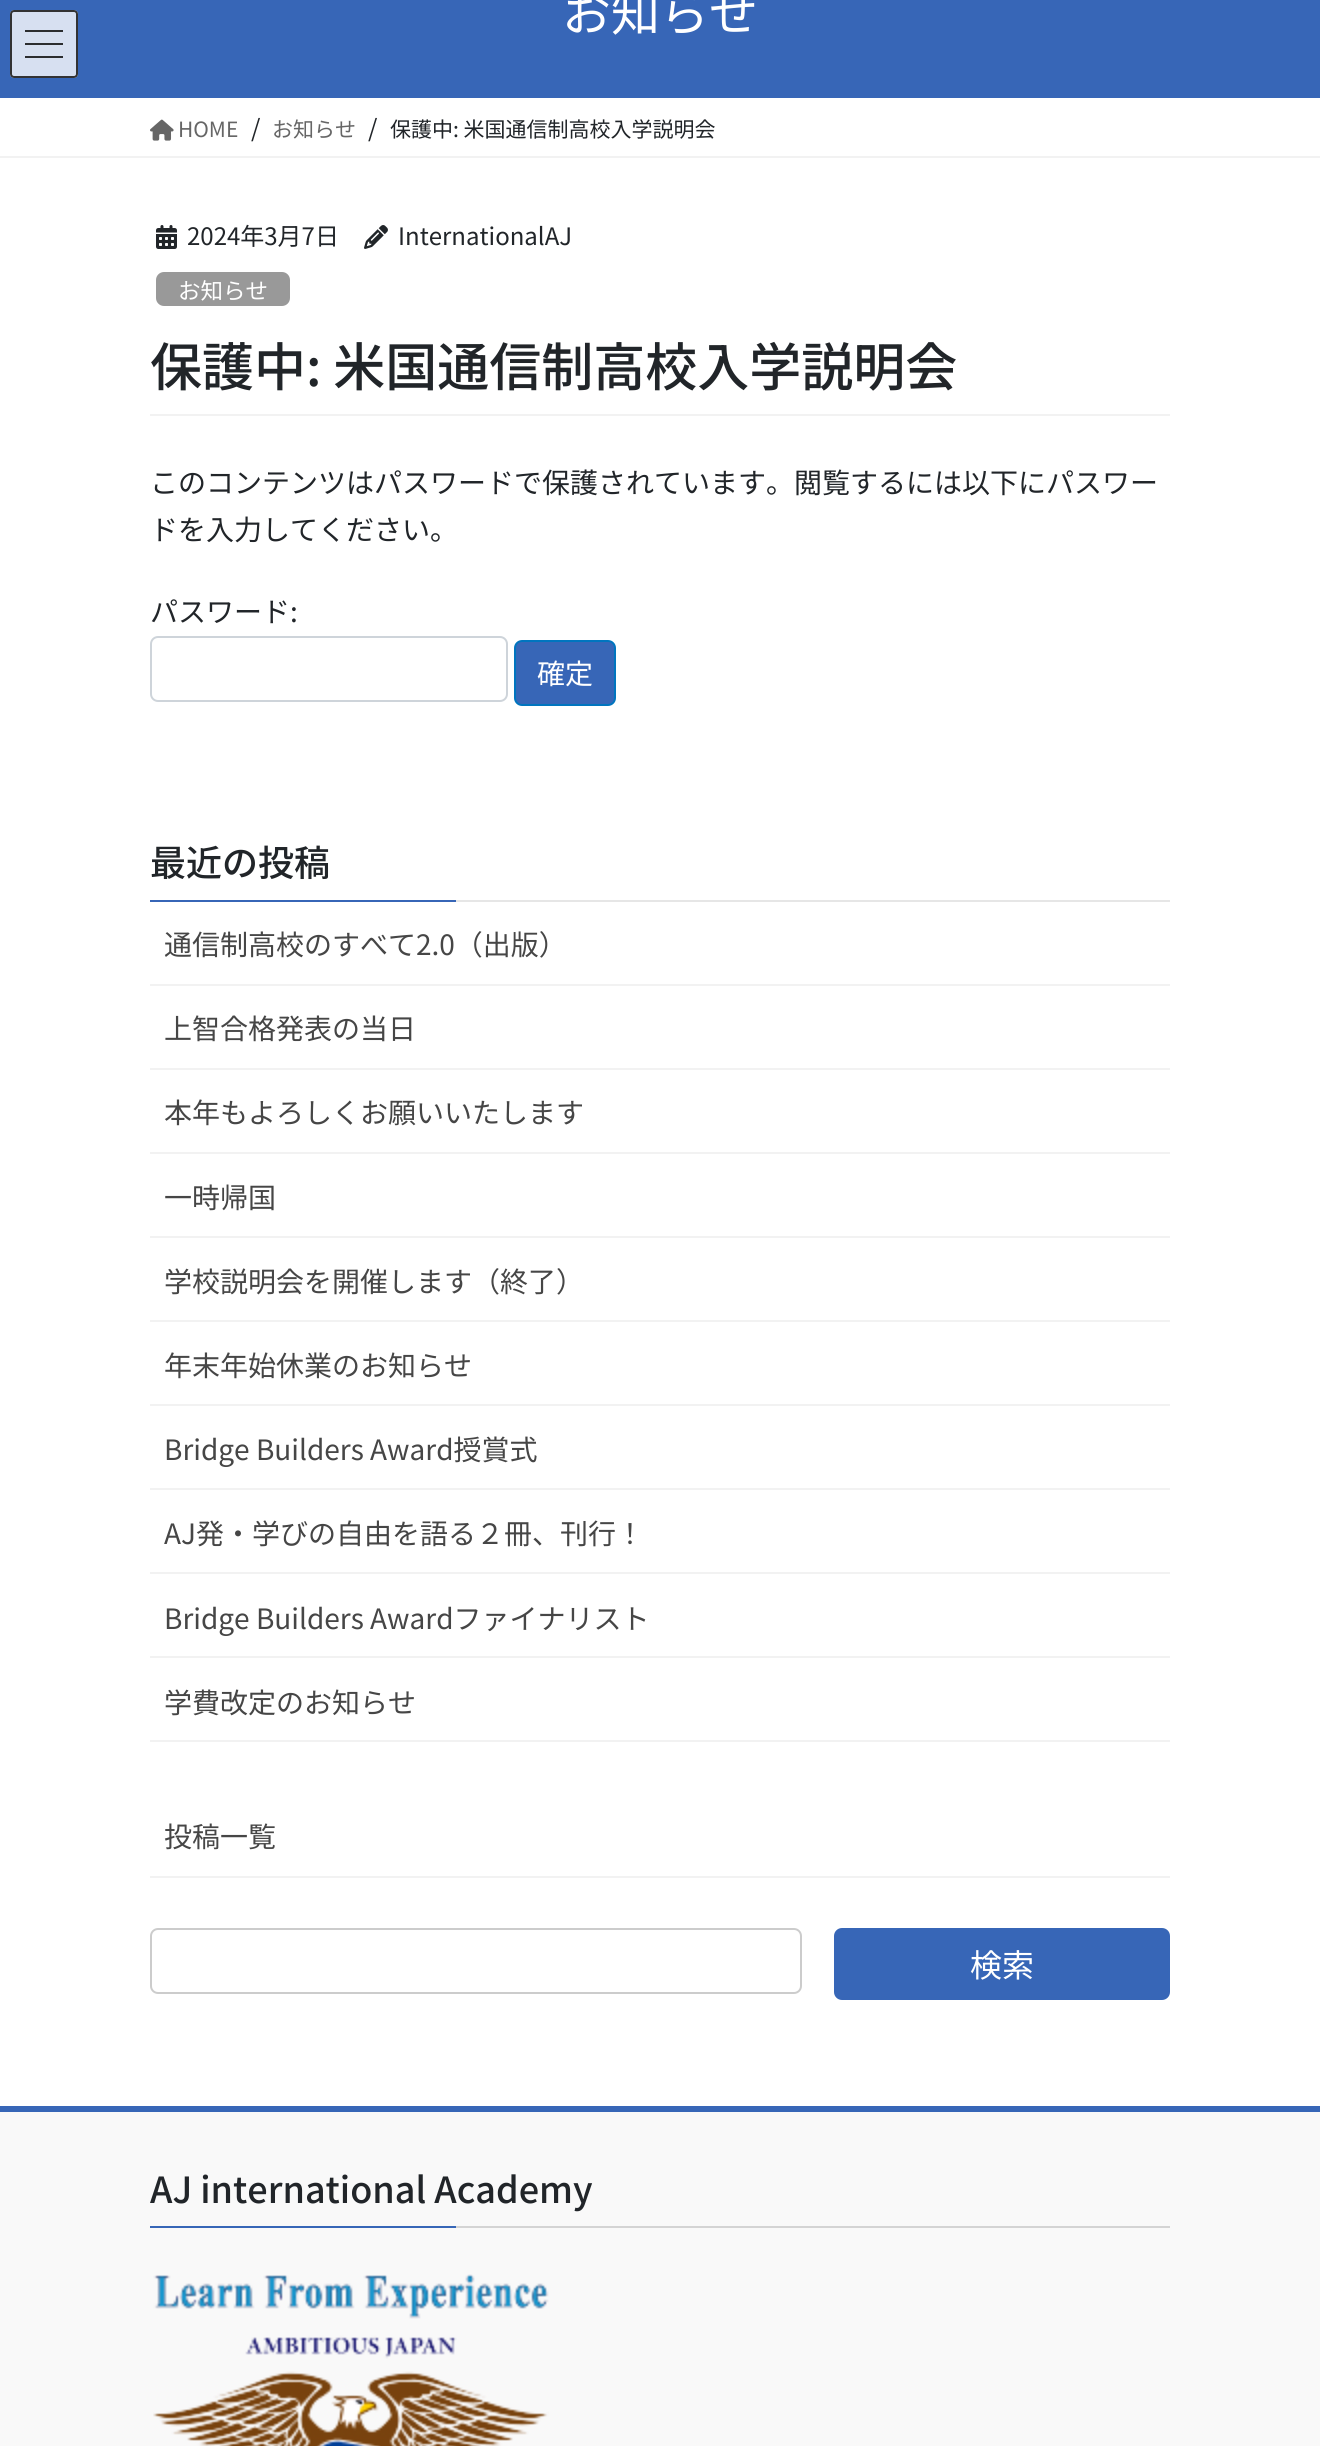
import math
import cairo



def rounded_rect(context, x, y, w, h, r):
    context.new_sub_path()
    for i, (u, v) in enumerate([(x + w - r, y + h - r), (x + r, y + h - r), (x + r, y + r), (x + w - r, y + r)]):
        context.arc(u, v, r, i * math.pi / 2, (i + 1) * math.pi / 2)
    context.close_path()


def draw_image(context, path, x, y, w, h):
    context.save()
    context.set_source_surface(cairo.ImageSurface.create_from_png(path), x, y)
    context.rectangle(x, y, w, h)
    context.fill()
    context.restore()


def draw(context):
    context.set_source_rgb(1, 1, 1)
    context.paint()
    context.set_source_rgb(55 / 255, 102 / 255, 183 / 255)
    context.rectangle(0, 0, 1320, 98)
    context.fill()
    context.set_source_rgb(215 / 255, 224 / 255, 241 / 255)
    rounded_rect(context, 10, 10, 68, 68, 4)
    context.fill()
    context.set_source_rgb(43 / 255, 45 / 255, 48 / 255)
    context.rectangle(25, 30, 38, 2)
    context.fill()
    context.rectangle(25, 43, 38, 2)
    context.fill()
    context.rectangle(25, 56, 38, 2)
    context.fill()
    rounded_rect(context, 11, 11, 66, 66, 3)
    context.set_source_rgb(51 / 255, 51 / 255, 51 / 255)
    context.stroke()
    context.set_source_rgb(242 / 255, 242 / 255, 242 / 255)
    context.rectangle(0, 156, 1320, 2)
    context.fill()
    draw_image(context, "images/1.png", 150, 119, 24, 22)
    context.rectangle(150, 414, 1020, 2)
    context.fill()
    draw_image(context, "images/2.png", 156, 225, 21, 24)
    draw_image(context, "images/3.png", 364, 225, 24, 24)
    context.set_source_rgb(153 / 255, 153 / 255, 153 / 255)
    rounded_rect(context, 156, 272, 134, 34, 8)
    context.fill()
    rounded_rect(context, 151, 637, 356, 64, 7)
    context.set_source_rgb(206 / 255, 212 / 255, 218 / 255)
    context.stroke()
    context.set_source_rgb(55 / 255, 102 / 255, 183 / 255)
    rounded_rect(context, 515, 641, 100, 64, 7)
    context.fill_preserve()
    context.set_source_rgb(0, 117 / 255, 191 / 255)
    context.stroke()
    context.set_source_rgb(230 / 255, 230 / 255, 230 / 255)
    context.rectangle(456, 900, 714, 2)
    context.fill()
    context.set_source_rgb(55 / 255, 102 / 255, 183 / 255)
    context.rectangle(150, 900, 306, 2)
    context.fill()
    context.set_source_rgb(242 / 255, 242 / 255, 242 / 255)
    context.rectangle(150, 984, 1020, 2)
    context.fill()
    context.rectangle(150, 1068, 1020, 2)
    context.fill()
    context.rectangle(150, 1152, 1020, 2)
    context.fill()
    context.rectangle(150, 1236, 1020, 2)
    context.fill()
    context.rectangle(150, 1320, 1020, 2)
    context.fill()
    context.rectangle(150, 1404, 1020, 2)
    context.fill()
    context.rectangle(150, 1488, 1020, 2)
    context.fill()
    context.rectangle(150, 1572, 1020, 2)
    context.fill()
    context.rectangle(150, 1656, 1020, 2)
    context.fill()
    context.rectangle(150, 1740, 1020, 2)
    context.fill()
    context.rectangle(150, 1876, 1020, 2)
    context.fill()
    rounded_rect(context, 151, 1929, 650, 64, 7)
    context.set_source_rgb(204 / 255, 204 / 255, 204 / 255)
    context.stroke()
    context.set_source_rgb(55 / 255, 102 / 255, 183 / 255)
    rounded_rect(context, 834, 1928, 336, 72, 8)
    context.fill()
    context.set_source_rgb(249 / 255, 249 / 255, 249 / 255)
    context.rectangle(0, 2112, 1320, 334)
    context.fill()
    context.set_source_rgb(55 / 255, 102 / 255, 183 / 255)
    context.rectangle(0, 2106, 1320, 6)
    context.fill()
    context.set_source_rgb(212 / 255, 212 / 255, 212 / 255)
    context.rectangle(456, 2226, 714, 2)
    context.fill()
    context.set_source_rgb(55 / 255, 102 / 255, 183 / 255)
    context.rectangle(150, 2226, 306, 2)
    context.fill()
    draw_image(context, "images/4.png", 153, 2274, 396, 172)
    context.select_font_face("Noto Sans JP")
    context.set_font_size(49)
    context.set_source_rgb(1, 1, 1)
    context.move_to(562, 31)
    context.show_text("お知らせ")
    context.set_font_size(21)
    context.set_source_rgb(102 / 255, 102 / 255, 102 / 255)
    context.move_to(178, 137)
    context.show_text("HOME")
    context.set_font_size(24)
    context.set_source_rgb(33 / 255, 37 / 255, 41 / 255)
    context.move_to(251, 137)
    context.show_text("/")
    context.set_font_size(21)
    context.set_source_rgb(102 / 255, 102 / 255, 102 / 255)
    context.move_to(272, 137)
    context.show_text("お知らせ")
    context.set_font_size(24)
    context.set_source_rgb(33 / 255, 37 / 255, 41 / 255)
    context.move_to(368, 137)
    context.show_text("/")
    context.set_font_size(21)
    context.move_to(390, 137)
    context.show_text("保護中: 米国通信制高校入学説明会")
    context.set_font_size(24)
    context.move_to(187, 245)
    context.show_text("2024年3月7日")
    context.move_to(398, 245)
    context.show_text("InternationalAJ")
    context.set_font_size(22.5)
    context.set_source_rgb(1, 1, 1)
    context.move_to(178, 299)
    context.show_text("お知らせ")
    context.select_font_face("Noto Sans JP Medium")
    context.set_font_size(52)
    context.set_source_rgb(33 / 255, 37 / 255, 41 / 255)
    context.move_to(150, 386)
    context.show_text("保護中: 米国通信制高校入学説明会")
    context.select_font_face("Noto Sans JP")
    context.set_font_size(28)
    context.move_to(150, 493)
    context.show_text("このコンテンツはパスワードで保護されています。閲覧するには以下にパスワー")
    context.move_to(150, 540)
    context.show_text("ドを入力してください。")
    context.move_to(150, 622)
    context.show_text("パスワード:")
    context.set_source_rgb(1, 1, 1)
    context.move_to(537, 684)
    context.show_text("確定")
    context.select_font_face("Noto Sans JP Medium")
    context.set_font_size(36)
    context.set_source_rgb(33 / 255, 37 / 255, 41 / 255)
    context.move_to(150, 876)
    context.show_text("最近の投稿")
    context.select_font_face("Noto Sans JP")
    context.set_font_size(28)
    context.set_source_rgb(70 / 255, 70 / 255, 70 / 255)
    context.move_to(164, 955)
    context.show_text("通信制高校のすべて2.0（出版）")
    context.move_to(164, 1039)
    context.show_text("上智合格発表の当日")
    context.move_to(164, 1123)
    context.show_text("本年もよろしくお願いいたします")
    context.move_to(164, 1208)
    context.show_text("一時帰国")
    context.move_to(164, 1292)
    context.show_text("学校説明会を開催します（終了）")
    context.move_to(164, 1376)
    context.show_text("年末年始休業のお知らせ")
    context.move_to(164, 1460)
    context.show_text("Bridge Builders Award授賞式")
    context.move_to(164, 1544)
    context.show_text("AJ発・学びの自由を語る２冊、刊行！")
    context.move_to(164, 1629)
    context.show_text("Bridge Builders Awardファイナリスト")
    context.move_to(164, 1713)
    context.show_text("学費改定のお知らせ")
    context.move_to(164, 1847)
    context.show_text("投稿一覧")
    context.set_font_size(32)
    context.set_source_rgb(1, 1, 1)
    context.move_to(970, 1977)
    context.show_text("検索")
    context.select_font_face("Noto Sans JP Medium")
    context.set_font_size(36)
    context.set_source_rgb(33 / 255, 37 / 255, 41 / 255)
    context.move_to(150, 2203)
    context.show_text("AJ international Academy")


surface = cairo.ImageSurface(cairo.Format.RGB24, 1320, 2446)
context = cairo.Context(surface)
options = cairo.FontOptions()
options.set_hint_metrics(cairo.HintMetrics.OFF)
options.set_hint_style(cairo.HintStyle.NONE)
context.set_font_options(options)
context.set_miter_limit(4)
draw(context)
surface.write_to_png("out.png")
